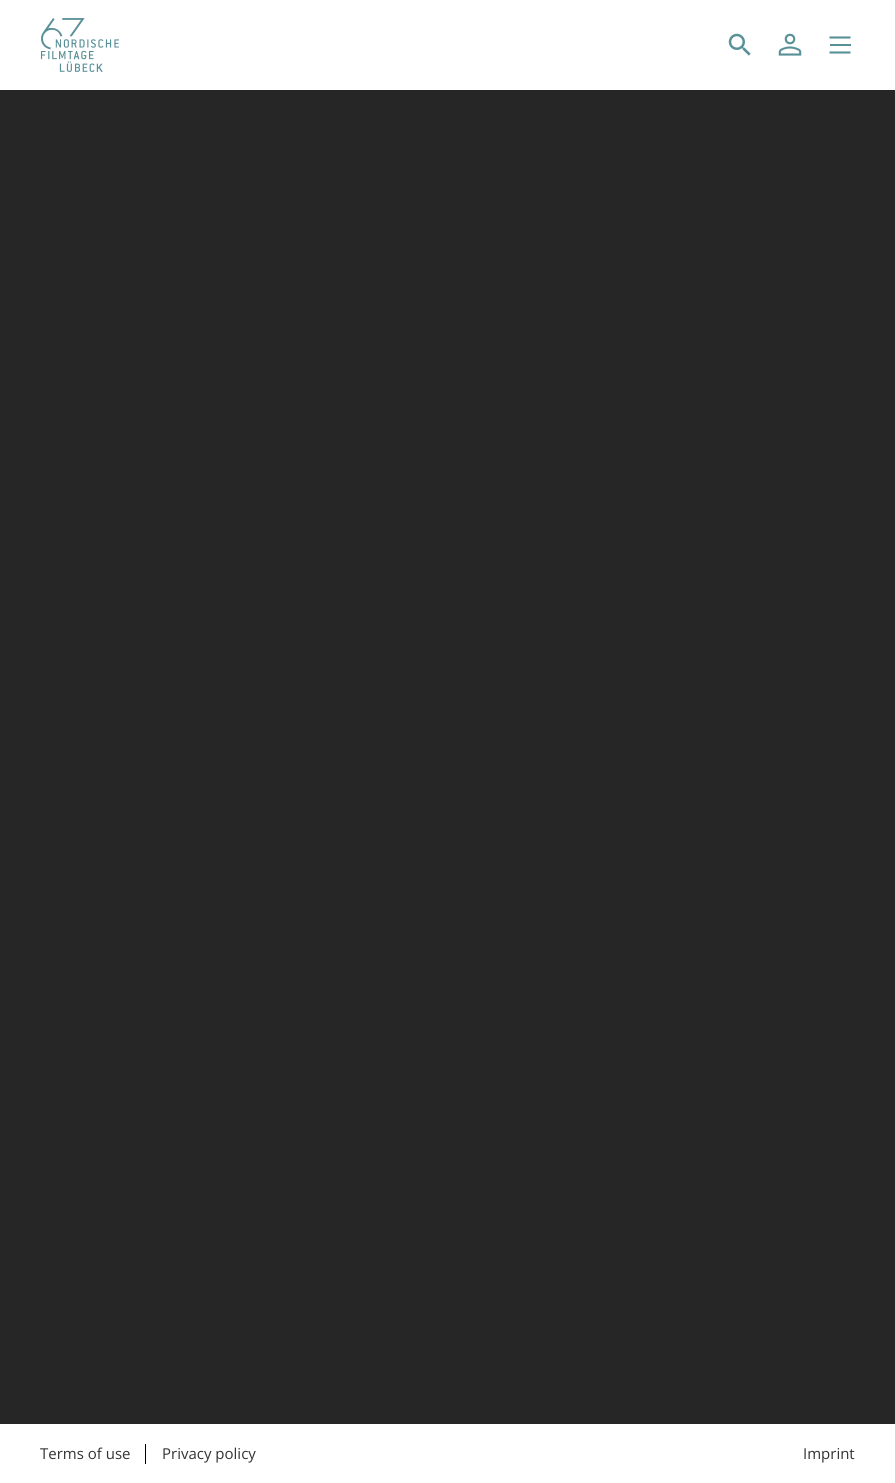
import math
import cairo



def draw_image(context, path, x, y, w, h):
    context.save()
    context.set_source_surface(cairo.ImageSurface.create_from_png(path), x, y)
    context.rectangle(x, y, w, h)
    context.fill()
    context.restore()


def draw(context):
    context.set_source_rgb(38 / 255, 38 / 255, 38 / 255)
    context.paint()
    context.set_source_rgb(1, 1, 1)
    context.rectangle(0, 0, 895, 90)
    context.fill()
    draw_image(context, "images/1.png", 40, 18, 79, 54)
    draw_image(context, "images/2.png", 728, 33, 23, 23)
    draw_image(context, "images/3.png", 778, 33, 24, 23)
    context.new_path()
    context.move_to(829.5, 37.5)
    context.line_to(850.5, 37.5)
    context.set_source_rgb(89 / 255, 145 / 255, 152 / 255)
    context.set_line_width(2.1)
    context.stroke()
    context.rectangle(830, 44, 21, 2)
    context.fill()
    context.new_path()
    context.move_to(829.5, 52.5)
    context.line_to(850.5, 52.5)
    context.stroke()
    context.set_source_rgb(1, 1, 1)
    context.rectangle(0, 1424, 895, 59)
    context.fill()
    context.set_source_rgb(0, 0, 0)
    context.rectangle(145, 1444, 1, 20)
    context.fill()
    context.select_font_face("Open Sans")
    context.set_font_size(15)
    context.set_source_rgb(51 / 255, 51 / 255, 51 / 255)
    context.move_to(40, 1459)
    context.show_text("Terms of use")
    context.move_to(162, 1459)
    context.show_text("Privacy policy")
    context.move_to(803, 1459)
    context.show_text("Imprint")


surface = cairo.ImageSurface(cairo.Format.RGB24, 895, 1483)
context = cairo.Context(surface)
options = cairo.FontOptions()
options.set_hint_metrics(cairo.HintMetrics.OFF)
options.set_hint_style(cairo.HintStyle.NONE)
context.set_font_options(options)
context.set_miter_limit(4)
draw(context)
surface.write_to_png("out.png")
